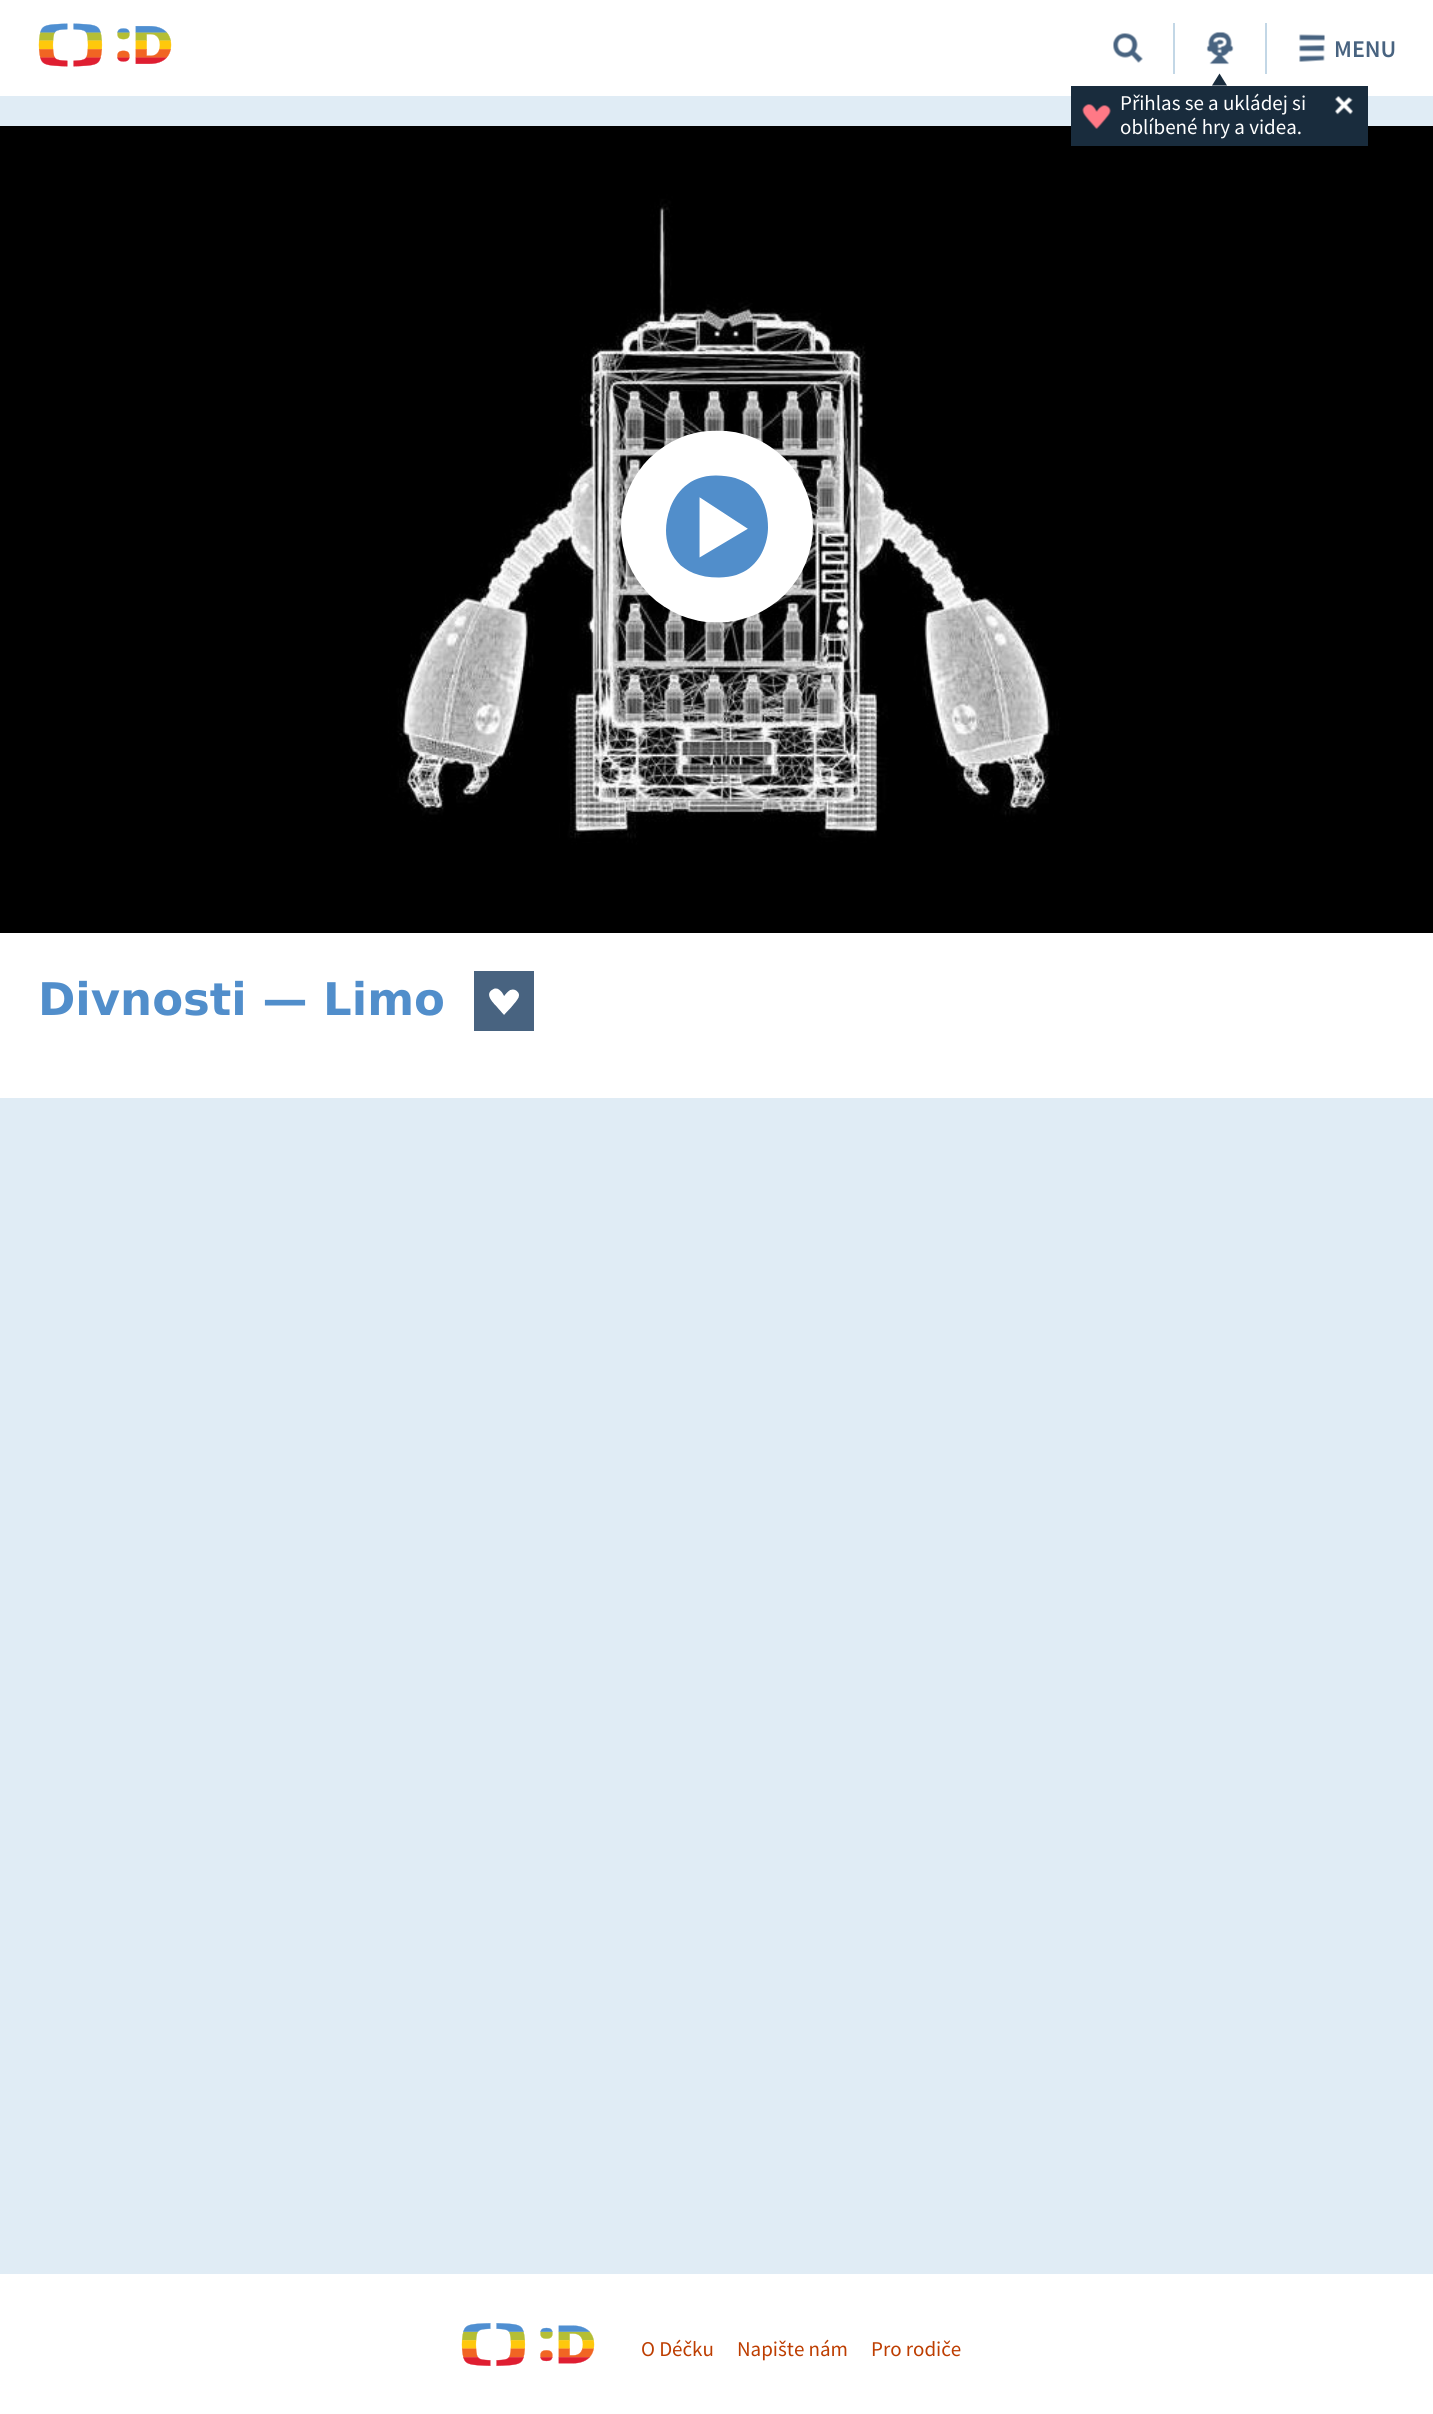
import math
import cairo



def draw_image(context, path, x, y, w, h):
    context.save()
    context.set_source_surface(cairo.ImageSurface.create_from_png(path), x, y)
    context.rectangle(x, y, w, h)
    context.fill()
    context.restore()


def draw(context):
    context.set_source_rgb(224 / 255, 236 / 255, 245 / 255)
    context.paint()
    context.set_source_rgb(1, 1, 1)
    context.rectangle(0, 0, 1433, 96)
    context.fill()
    draw_image(context, "images/1.png", 38, 23, 134, 44)
    draw_image(context, "images/2.png", 1113, 33, 30, 30)
    context.set_source_rgb(195 / 255, 215 / 255, 230 / 255)
    context.rectangle(1265, 23, 2, 51)
    context.fill()
    draw_image(context, "images/3.png", 1299, 34, 26, 28)
    context.rectangle(1173, 23, 2, 51)
    context.fill()
    draw_image(context, "images/4.png", 1206, 31, 28, 34)
    draw_image(context, "images/7.png", 0, 126, 1433, 807)
    context.set_source_rgb(25 / 255, 44 / 255, 61 / 255)
    context.rectangle(1071, 86, 297, 60)
    context.fill()
    context.new_path()
    context.move_to(1227, 85.5)
    context.line_to(1212, 85.5)
    context.line_to(1219.5, 73.5)
    context.close_path()
    context.fill()
    draw_image(context, "images/5.png", 1082, 104, 29, 25)
    draw_image(context, "images/6.png", 1335, 96, 18, 19)
    draw_image(context, "images/8.png", 621, 430, 192, 193)
    context.set_source_rgb(1, 1, 1)
    context.rectangle(0, 933, 1433, 165)
    context.fill()
    context.set_source_rgb(72 / 255, 99 / 255, 128 / 255)
    context.rectangle(474, 971, 60, 60)
    context.fill()
    draw_image(context, "images/9.png", 489, 988, 30, 27)
    context.set_source_rgb(1, 1, 1)
    context.rectangle(0, 2274, 1433, 140)
    context.fill()
    draw_image(context, "images/10.png", 461, 2323, 134, 43)
    context.select_font_face("Source Sans Pro SemiBold")
    context.set_font_size(24)
    context.set_source_rgb(72 / 255, 99 / 255, 128 / 255)
    context.move_to(1334, 57)
    context.show_text("MENU")
    context.select_font_face("Source Sans Pro")
    context.set_font_size(21)
    context.set_source_rgb(1, 1, 1)
    context.move_to(1120, 110)
    context.show_text("Přihlas se a ukládej si")
    context.move_to(1120, 134)
    context.show_text("oblíbené hry a videa.")
    context.select_font_face("DejaVu Sans", cairo.FontSlant.NORMAL, cairo.FontWeight.BOLD)
    context.set_font_size(45)
    context.set_source_rgb(81 / 255, 142 / 255, 203 / 255)
    context.move_to(38, 1015)
    context.show_text("Divnosti — Limo")
    context.select_font_face("Source Sans Pro")
    context.set_font_size(21)
    context.set_source_rgb(189 / 255, 61 / 255, 0)
    context.move_to(641, 2356)
    context.show_text("O Déčku")
    context.move_to(737, 2356)
    context.show_text("Napište nám")
    context.move_to(871, 2356)
    context.show_text("Pro rodiče")


surface = cairo.ImageSurface(cairo.Format.RGB24, 1433, 2414)
context = cairo.Context(surface)
options = cairo.FontOptions()
options.set_hint_metrics(cairo.HintMetrics.OFF)
options.set_hint_style(cairo.HintStyle.NONE)
context.set_font_options(options)
context.set_miter_limit(4)
draw(context)
surface.write_to_png("out.png")
